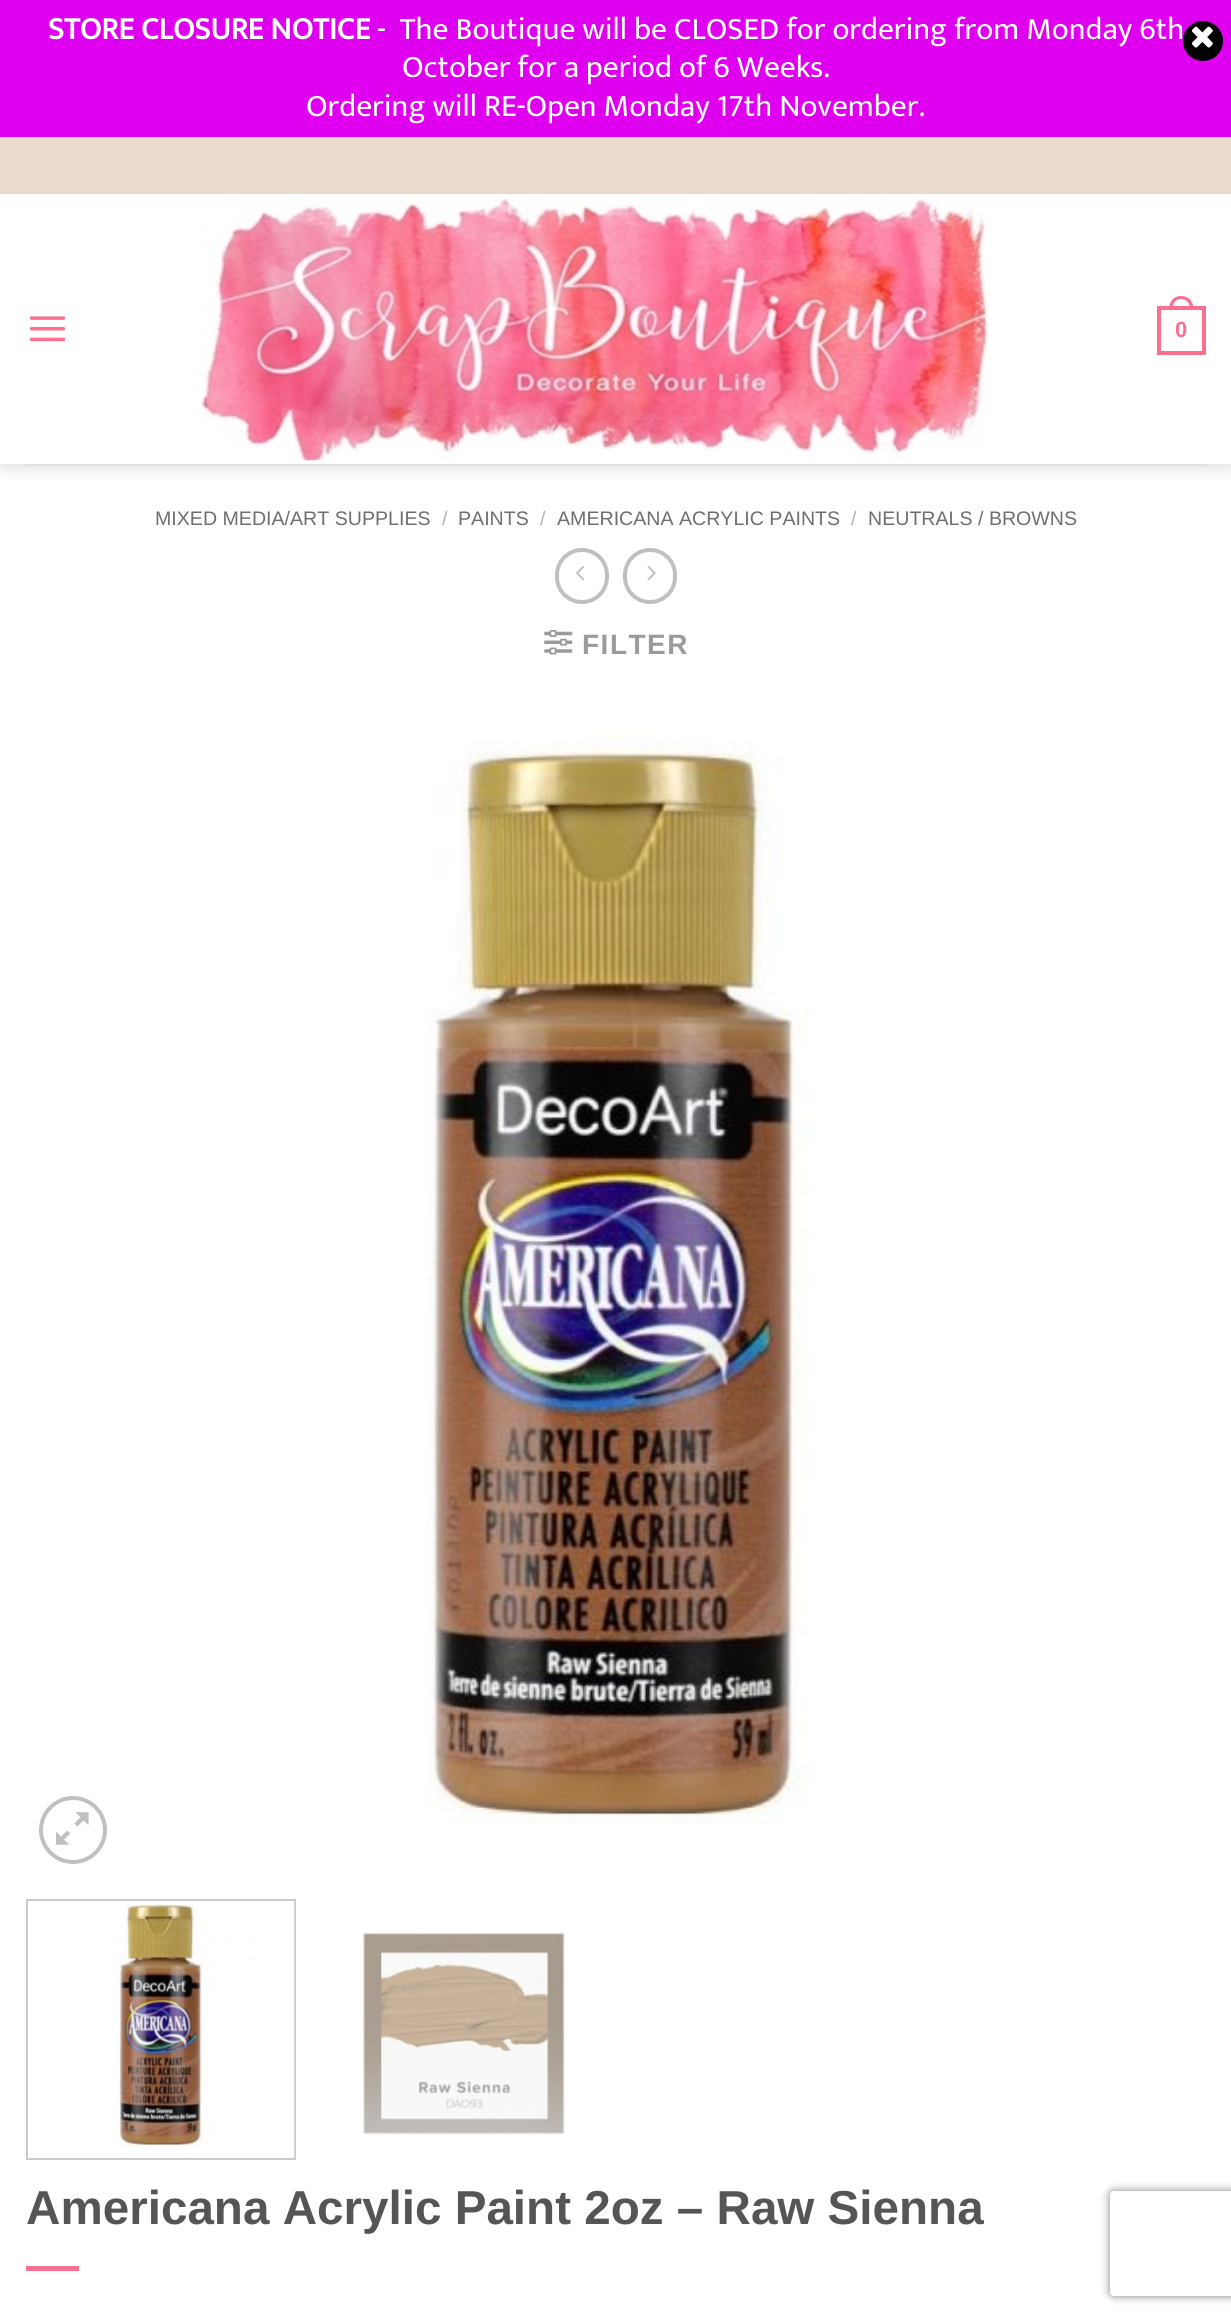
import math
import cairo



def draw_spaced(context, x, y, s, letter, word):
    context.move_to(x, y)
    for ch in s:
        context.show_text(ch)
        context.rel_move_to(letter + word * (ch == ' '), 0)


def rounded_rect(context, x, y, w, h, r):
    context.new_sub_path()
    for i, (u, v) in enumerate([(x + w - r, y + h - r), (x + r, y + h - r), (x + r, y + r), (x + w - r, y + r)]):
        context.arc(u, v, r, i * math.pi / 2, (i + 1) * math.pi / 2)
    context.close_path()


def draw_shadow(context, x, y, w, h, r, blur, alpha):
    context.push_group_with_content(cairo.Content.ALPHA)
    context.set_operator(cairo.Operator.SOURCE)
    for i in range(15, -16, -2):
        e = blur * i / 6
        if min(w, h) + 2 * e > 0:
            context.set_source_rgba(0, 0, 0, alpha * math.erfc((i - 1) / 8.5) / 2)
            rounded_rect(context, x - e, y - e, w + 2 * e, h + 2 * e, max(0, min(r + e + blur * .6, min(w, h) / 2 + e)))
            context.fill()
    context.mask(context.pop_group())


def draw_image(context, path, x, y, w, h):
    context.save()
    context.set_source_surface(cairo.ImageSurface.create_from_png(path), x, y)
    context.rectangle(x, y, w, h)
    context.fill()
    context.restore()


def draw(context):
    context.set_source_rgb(1, 1, 1)
    context.paint()
    context.set_source_rgb(0, 0, 0)
    draw_shadow(context, 2, 138, 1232, 328, 0, 9, 0.15)
    context.set_source_rgb(223 / 255, 0, 239 / 255)
    context.rectangle(0, 0, 1231, 137)
    context.fill()
    context.set_source_rgb(0, 0, 0)
    context.arc(1203, 41, 20, 0, 2 * math.pi)
    context.fill()
    draw_image(context, "images/1.png", 1191, 26, 22, 22)
    context.set_source_rgb(234 / 255, 218 / 255, 204 / 255)
    context.rectangle(0, 137, 1231, 57)
    context.fill()
    context.set_source_rgb(1, 1, 1)
    context.rectangle(0, 194, 1231, 270)
    context.fill()
    draw_image(context, "images/2.png", 29, 316, 37, 26)
    draw_image(context, "images/3.png", 201, 198, 788, 263)
    context.rectangle(1159, 308, 45, 45)
    context.set_source_rgb(250 / 255, 113 / 255, 143 / 255)
    context.set_line_width(4)
    context.stroke()
    context.set_fill_rule(cairo.FillRule.EVEN_ODD)
    context.new_path()
    context.move_to(1181, 296)
    context.curve_to(1189.5, 296, 1193.5, 302, 1193.5, 310)
    context.line_to(1169, 310)
    context.curve_to(1169, 302, 1173, 296, 1181, 296)
    context.close_path()
    context.move_to(1181, 299)
    context.curve_to(1187.5, 299, 1190, 304, 1190, 310)
    context.line_to(1172.5, 310)
    context.curve_to(1172.5, 304, 1175, 299, 1181, 299)
    context.close_path()
    context.fill()
    context.set_source_rgb(226 / 255, 226 / 255, 226 / 255)
    context.rectangle(26, 464, 1180, 2)
    context.fill()
    rounded_rect(context, 557, 550, 50, 52, 25)
    context.set_source_rgb(192 / 255, 192 / 255, 192 / 255)
    context.stroke()
    draw_image(context, "images/4.png", 575, 566, 10, 15)
    rounded_rect(context, 625, 550, 50, 52, 25)
    context.stroke()
    draw_image(context, "images/5.png", 647, 566, 9, 15)
    draw_image(context, "images/6.png", 544, 630, 29, 25)
    context.arc(73, 1830, 32, 0, 2 * math.pi)
    context.stroke()
    draw_image(context, "images/7.png", 56, 1812, 33, 33)
    draw_image(context, "images/8.png", 427, 731, 385, 1095)
    context.rectangle(27, 1900, 268, 259)
    context.set_source_rgb(204 / 255, 204 / 255, 204 / 255)
    context.set_line_width(2)
    context.stroke()
    draw_image(context, "images/9.png", 113, 1901, 182, 256)
    draw_image(context, "images/10.png", 361, 1931, 205, 204)
    context.set_source_rgb(250 / 255, 113 / 255, 143 / 255)
    context.rectangle(26, 2266, 53, 5)
    context.fill()
    context.save()
    context.new_path()
    context.move_to(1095, 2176)
    context.line_to(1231, 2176)
    context.line_to(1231, 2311)
    context.line_to(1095, 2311)
    context.close_path()
    context.move_to(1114, 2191)
    context.line_to(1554, 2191)
    context.curve_to(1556, 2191, 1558, 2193, 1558, 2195)
    context.line_to(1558, 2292)
    context.curve_to(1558, 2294, 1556, 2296, 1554, 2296)
    context.line_to(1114, 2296)
    context.curve_to(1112, 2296, 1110, 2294, 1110, 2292)
    context.line_to(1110, 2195)
    context.curve_to(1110, 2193, 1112, 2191, 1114, 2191)
    context.close_path()
    context.clip()
    context.set_source_rgb(128 / 255, 128 / 255, 128 / 255)
    draw_shadow(context, 1110, 2191, 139, 105, 4, 4.5, 1)
    context.restore()
    context.select_font_face("Ek Mukta", cairo.FontSlant.NORMAL, cairo.FontWeight.BOLD)
    context.set_font_size(31.5)
    context.set_source_rgb(1, 1, 1)
    context.move_to(48, 39)
    context.show_text("STORE CLOSURE NOTICE")
    context.select_font_face("Ek Mukta")
    context.move_to(377, 39)
    context.show_text("-  The Boutique will be CLOSED for ordering from Monday 6th")
    context.move_to(402, 77)
    context.show_text("October for a period of 6 Weeks.")
    context.move_to(306, 116)
    context.show_text("Ordering will RE-Open Monday 17th November.")
    context.select_font_face("Liberation Sans", cairo.FontSlant.NORMAL, cairo.FontWeight.BOLD)
    context.set_font_size(22)
    context.set_source_rgb(250 / 255, 113 / 255, 143 / 255)
    context.move_to(1175, 337)
    context.show_text("0")
    context.select_font_face("Liberation Sans")
    context.set_font_size(19.6)
    context.set_source_rgb(110 / 255, 110 / 255, 110 / 255)
    context.move_to(155, 525)
    context.show_text("MIXED MEDIA/ART SUPPLIES")
    context.set_source_rgb(178 / 255, 178 / 255, 178 / 255)
    context.move_to(442, 525)
    context.show_text("/")
    context.set_source_rgb(110 / 255, 110 / 255, 110 / 255)
    context.move_to(458, 525)
    context.show_text("PAINTS")
    context.set_source_rgb(178 / 255, 178 / 255, 178 / 255)
    context.move_to(540, 525)
    context.show_text("/")
    context.set_source_rgb(110 / 255, 110 / 255, 110 / 255)
    context.move_to(557, 525)
    context.show_text("AMERICANA ACRYLIC PAINTS")
    context.set_source_rgb(178 / 255, 178 / 255, 178 / 255)
    context.move_to(851, 525)
    context.show_text("/")
    context.set_source_rgb(110 / 255, 110 / 255, 110 / 255)
    context.move_to(868, 525)
    context.show_text("NEUTRALS / BROWNS")
    context.select_font_face("Liberation Sans", cairo.FontSlant.NORMAL, cairo.FontWeight.BOLD)
    context.set_font_size(28)
    context.set_source_rgb(155 / 255, 155 / 255, 155 / 255)
    draw_spaced(context, 582, 654, "FILTER", 1.5, 0)
    context.set_font_size(47.6)
    context.set_source_rgb(85 / 255, 85 / 255, 85 / 255)
    context.move_to(26, 2224)
    context.show_text("Americana Acrylic Paint 2oz – Raw Sienna")


surface = cairo.ImageSurface(cairo.Format.RGB24, 1231, 2320)
context = cairo.Context(surface)
options = cairo.FontOptions()
options.set_hint_metrics(cairo.HintMetrics.OFF)
options.set_hint_style(cairo.HintStyle.NONE)
context.set_font_options(options)
context.set_miter_limit(4)
draw(context)
surface.write_to_png("out.png")
